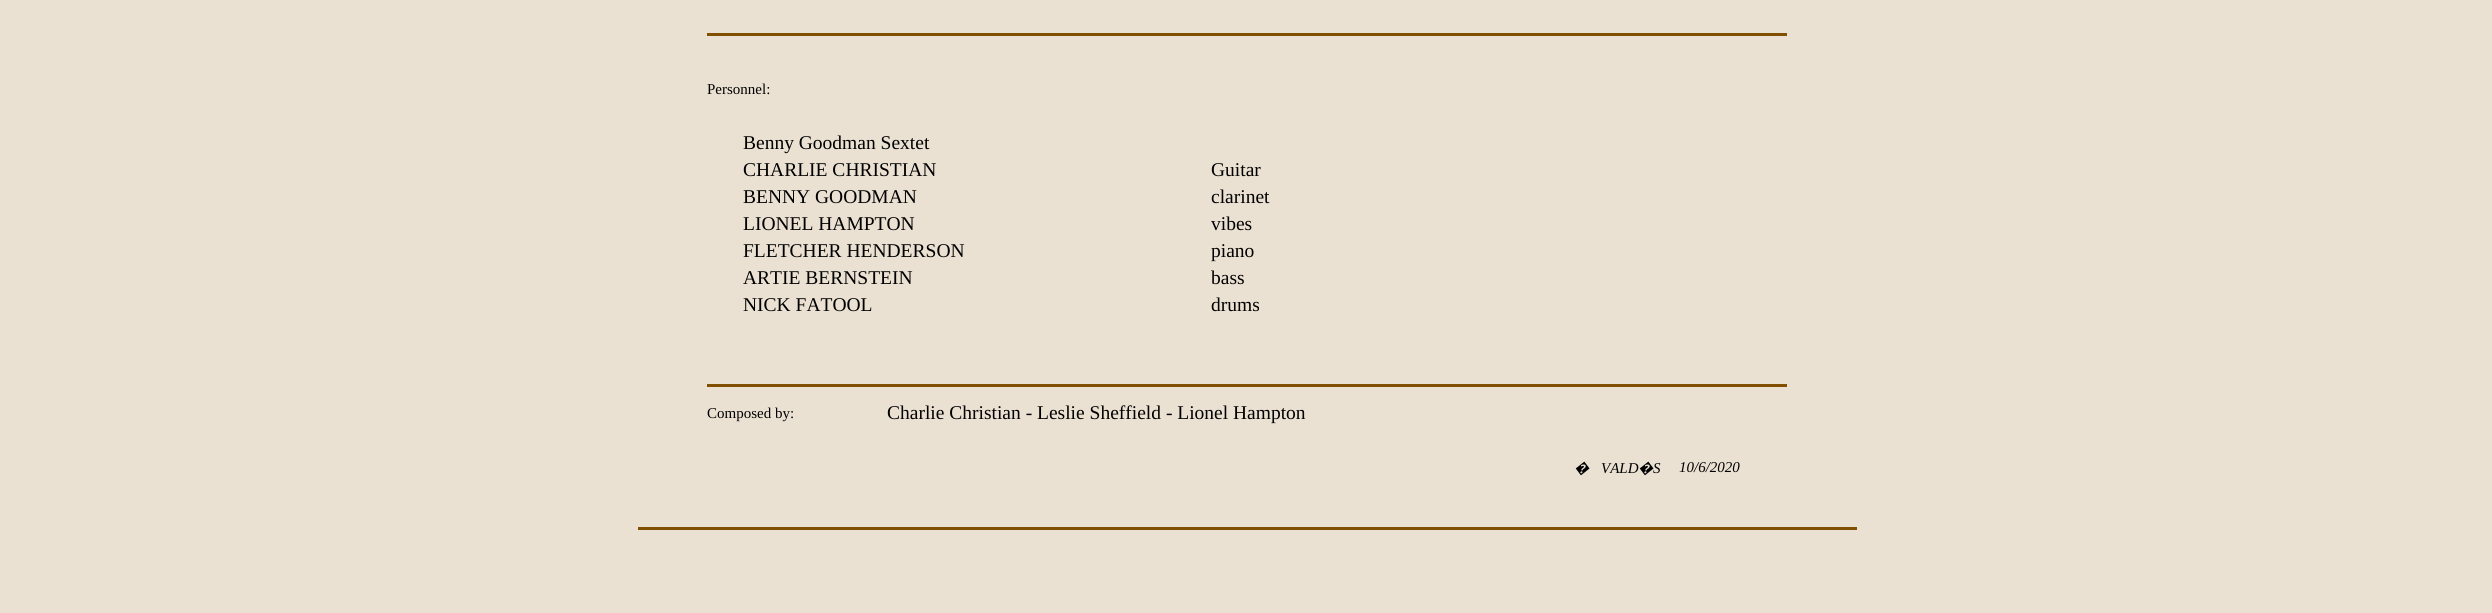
import math
import cairo



def draw(context):
    context.set_source_rgb(234 / 255, 225 / 255, 210 / 255)
    context.paint()
    context.set_source_rgb(128 / 255, 80 / 255, 0)
    context.rectangle(707, 33, 1080, 3)
    context.fill()
    context.rectangle(707, 384, 1080, 3)
    context.fill()
    context.rectangle(638, 527, 1219, 3)
    context.fill()
    context.select_font_face("Liberation Serif")
    context.set_font_size(15)
    context.set_source_rgb(0, 0, 0)
    context.move_to(707, 94)
    context.show_text("Personnel:")
    context.set_font_size(19.5)
    context.move_to(743, 149)
    context.show_text("Benny Goodman Sextet")
    context.move_to(743, 176)
    context.show_text("CHARLIE CHRISTIAN")
    context.move_to(1211, 176)
    context.show_text("Guitar")
    context.move_to(743, 203)
    context.show_text("BENNY GOODMAN")
    context.move_to(1211, 203)
    context.show_text("clarinet")
    context.move_to(743, 230)
    context.show_text("LIONEL HAMPTON")
    context.move_to(1211, 230)
    context.show_text("vibes")
    context.move_to(743, 257)
    context.show_text("FLETCHER HENDERSON")
    context.move_to(1211, 257)
    context.show_text("piano")
    context.move_to(743, 284)
    context.show_text("ARTIE BERNSTEIN")
    context.move_to(1211, 284)
    context.show_text("bass")
    context.move_to(743, 311)
    context.show_text("NICK FATOOL")
    context.move_to(1211, 311)
    context.show_text("drums")
    context.set_font_size(15)
    context.move_to(707, 418)
    context.show_text("Composed by:")
    context.set_font_size(19.5)
    context.move_to(887, 419)
    context.show_text("Charlie Christian - Leslie Sheffield - Lionel Hampton")
    context.select_font_face("Noto Sans", cairo.FontSlant.ITALIC)
    context.set_font_size(15)
    context.move_to(1574, 473)
    context.show_text("�")
    context.select_font_face("Liberation Serif", cairo.FontSlant.ITALIC)
    context.move_to(1601, 473)
    context.show_text("VALD")
    context.select_font_face("Noto Sans", cairo.FontSlant.ITALIC)
    context.move_to(1638, 473)
    context.show_text("�")
    context.select_font_face("Liberation Serif", cairo.FontSlant.ITALIC)
    context.move_to(1653, 473)
    context.show_text("S")
    context.move_to(1679, 472)
    context.show_text("10/6/2020")


surface = cairo.ImageSurface(cairo.Format.RGB24, 2492, 613)
context = cairo.Context(surface)
options = cairo.FontOptions()
options.set_hint_metrics(cairo.HintMetrics.OFF)
options.set_hint_style(cairo.HintStyle.NONE)
context.set_font_options(options)
context.set_miter_limit(4)
draw(context)
surface.write_to_png("out.png")
